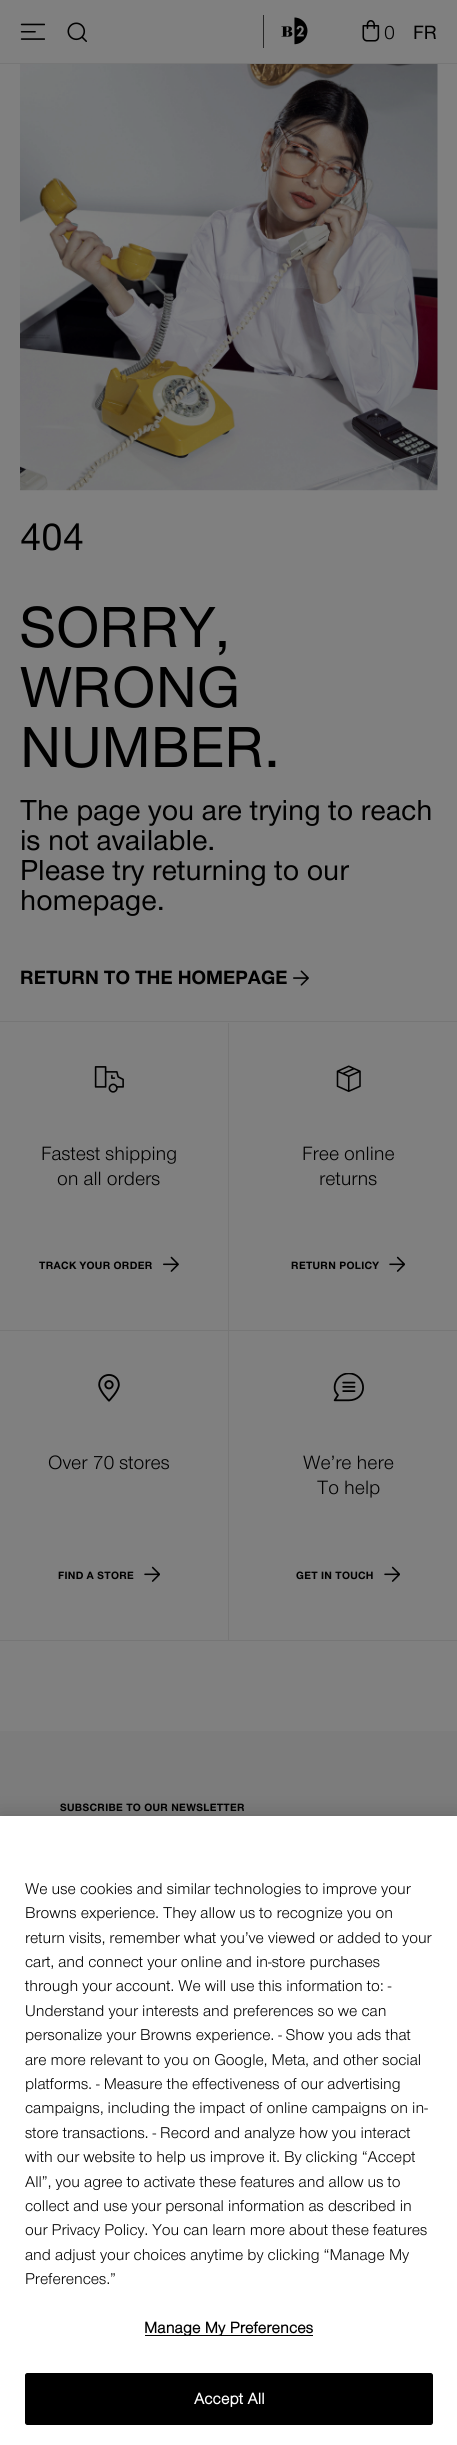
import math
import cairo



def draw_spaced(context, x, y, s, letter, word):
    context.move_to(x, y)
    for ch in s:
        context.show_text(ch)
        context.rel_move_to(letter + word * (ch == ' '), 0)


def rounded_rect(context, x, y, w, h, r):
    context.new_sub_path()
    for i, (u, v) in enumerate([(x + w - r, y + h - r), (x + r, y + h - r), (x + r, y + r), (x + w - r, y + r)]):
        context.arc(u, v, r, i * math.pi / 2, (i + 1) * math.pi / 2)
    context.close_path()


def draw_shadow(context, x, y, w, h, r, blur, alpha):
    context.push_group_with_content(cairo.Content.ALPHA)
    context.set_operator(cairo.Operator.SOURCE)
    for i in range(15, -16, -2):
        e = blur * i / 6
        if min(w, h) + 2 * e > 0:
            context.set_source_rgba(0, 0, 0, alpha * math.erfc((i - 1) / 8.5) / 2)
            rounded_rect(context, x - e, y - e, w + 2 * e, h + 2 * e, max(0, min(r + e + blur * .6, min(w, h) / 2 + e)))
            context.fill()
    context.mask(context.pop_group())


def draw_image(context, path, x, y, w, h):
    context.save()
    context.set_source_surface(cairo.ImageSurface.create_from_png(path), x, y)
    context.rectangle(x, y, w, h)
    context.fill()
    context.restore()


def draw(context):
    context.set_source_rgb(128 / 255, 128 / 255, 128 / 255)
    context.paint()
    context.set_source_rgb(118 / 255, 118 / 255, 118 / 255)
    context.rectangle(0, 63, 457, 1)
    context.fill()
    draw_image(context, "images/1.png", 20, 23, 25, 17)
    draw_image(context, "images/2.png", 67, 22, 20, 20)
    draw_image(context, "images/3.png", 263, 15, 45, 33)
    draw_image(context, "images/4.png", 362, 20, 18, 22)
    draw_image(context, "images/5.png", 20, 64, 418, 427)
    draw_image(context, "images/6.png", 293, 970, 16, 16)
    context.rectangle(0, 1021, 457, 1)
    context.fill()
    context.rectangle(0, 1640, 457, 1)
    context.fill()
    context.rectangle(228, 1023, 1, 617)
    context.fill()
    context.rectangle(0, 1330, 457, 1)
    context.fill()
    draw_image(context, "images/7.png", 94, 1066, 30, 27)
    draw_image(context, "images/8.png", 163, 1256, 16, 16)
    draw_image(context, "images/9.png", 336, 1065, 25, 27)
    draw_image(context, "images/10.png", 389, 1256, 16, 16)
    draw_image(context, "images/11.png", 98, 1374, 22, 28)
    draw_image(context, "images/10.png", 144, 1566, 16, 16)
    draw_image(context, "images/12.png", 333, 1373, 31, 29)
    draw_image(context, "images/10.png", 384, 1566, 16, 16)
    context.set_source_rgb(124 / 255, 124 / 255, 124 / 255)
    context.rectangle(0, 1731, 457, 85)
    context.fill()
    context.set_source_rgb(0, 0, 0)
    draw_shadow(context, 0, 1816, 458, 629, 0, 11, 0.2)
    context.set_source_rgb(1, 1, 1)
    context.rectangle(0, 1816, 457, 629)
    context.fill()
    context.set_source_rgb(0, 0, 0)
    context.rectangle(145, 2335, 168, 1)
    context.fill()
    rounded_rect(context, 25.5, 2373.5, 407, 51, 2)
    context.fill_preserve()
    context.set_line_width(1)
    context.stroke()
    context.select_font_face("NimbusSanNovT")
    context.set_font_size(20)
    context.move_to(384, 39)
    context.show_text("0")
    context.select_font_face("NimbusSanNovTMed")
    context.move_to(413, 39)
    context.show_text("FR")
    context.set_font_size(40)
    context.move_to(20, 550)
    context.show_text("404")
    context.set_font_size(60)
    context.move_to(20, 647)
    context.show_text("SORRY,")
    context.move_to(20, 707)
    context.show_text("WRONG")
    context.move_to(20, 767)
    context.show_text("NUMBER.")
    context.set_font_size(30)
    context.move_to(20, 820)
    context.show_text("The page you are trying to reach")
    context.move_to(20, 850)
    context.show_text("is not available.")
    context.move_to(20, 880)
    context.show_text("Please try returning to our")
    context.move_to(20, 910)
    context.show_text("homepage.")
    context.select_font_face("NimbusSanNovT", cairo.FontSlant.NORMAL, cairo.FontWeight.BOLD)
    context.set_font_size(20)
    context.move_to(20, 984)
    context.show_text("RETURN TO THE HOMEPAGE")
    context.select_font_face("NimbusSanNovT")
    context.move_to(41, 1160)
    context.show_text("Fastest shipping")
    context.move_to(57, 1185)
    context.show_text("on all orders")
    context.select_font_face("NimbusSanNovT", cairo.FontSlant.NORMAL, cairo.FontWeight.BOLD)
    context.set_font_size(11)
    draw_spaced(context, 39, 1269, "TRACK YOUR ORDER", 0.3, 0)
    context.select_font_face("NimbusSanNovT")
    context.set_font_size(20)
    context.move_to(302, 1160)
    context.show_text("Free online")
    context.move_to(319, 1185)
    context.show_text("returns")
    context.select_font_face("NimbusSanNovT", cairo.FontSlant.NORMAL, cairo.FontWeight.BOLD)
    context.set_font_size(11)
    draw_spaced(context, 291, 1269, "RETURN POLICY", 0.3, 0)
    context.select_font_face("NimbusSanNovT")
    context.set_font_size(20)
    context.move_to(48, 1469)
    context.show_text("Over 70 stores")
    context.select_font_face("NimbusSanNovT", cairo.FontSlant.NORMAL, cairo.FontWeight.BOLD)
    context.set_font_size(11)
    draw_spaced(context, 58, 1579, "FIND A STORE", 0.3, 0)
    context.select_font_face("NimbusSanNovT")
    context.set_font_size(20)
    context.move_to(303, 1469)
    context.show_text("We’re here")
    context.move_to(317, 1494)
    context.show_text("To help")
    context.select_font_face("NimbusSanNovT", cairo.FontSlant.NORMAL, cairo.FontWeight.BOLD)
    context.set_font_size(11)
    draw_spaced(context, 296, 1579, "GET IN TOUCH", 0.3, 0)
    draw_spaced(context, 60, 1811, "SUBSCRIBE TO OUR NEWSLETTER", 0.3, 0)
    context.select_font_face("NimbusSanNovT")
    context.set_font_size(16.25)
    context.move_to(25, 1894)
    context.show_text("We use cookies and similar technologies to improve your")
    context.move_to(25, 1918)
    context.show_text("Browns experience. They allow us to recognize you on")
    context.move_to(25, 1943)
    context.show_text("return visits, remember what you’ve viewed or added to your")
    context.move_to(25, 1967)
    context.show_text("cart, and connect your online and in-store purchases")
    context.move_to(25, 1991)
    context.show_text("through your account. We will use this information to: -")
    context.move_to(25, 2016)
    context.show_text("Understand your interests and preferences so we can")
    context.move_to(25, 2040)
    context.show_text("personalize your Browns experience. - Show you ads that")
    context.move_to(25, 2065)
    context.show_text("are more relevant to you on Google, Meta, and other social")
    context.move_to(25, 2089)
    context.show_text("platforms. - Measure the effectiveness of our advertising")
    context.move_to(25, 2113)
    context.show_text("campaigns, including the impact of online campaigns on in-")
    context.move_to(25, 2138)
    context.show_text("store transactions. - Record and analyze how you interact")
    context.move_to(25, 2162)
    context.show_text("with our website to help us improve it. By clicking “Accept")
    context.move_to(25, 2187)
    context.show_text("All”, you agree to activate these features and allow us to")
    context.move_to(25, 2211)
    context.show_text("collect and use your personal information as described in")
    context.move_to(25, 2235)
    context.show_text("our Privacy Policy. You can learn more about these features")
    context.move_to(25, 2260)
    context.show_text("and adjust your choices anytime by clicking “Manage My")
    context.move_to(25, 2284)
    context.show_text("Preferences.”")
    context.select_font_face("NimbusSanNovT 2", cairo.FontSlant.NORMAL, cairo.FontWeight.BOLD)
    draw_spaced(context, 144, 2333, "Manage My Preferences", 0.2, 0)
    context.set_source_rgb(1, 1, 1)
    draw_spaced(context, 194, 2404, "Accept All", 0.2, 0)


surface = cairo.ImageSurface(cairo.Format.RGB24, 457, 2445)
context = cairo.Context(surface)
options = cairo.FontOptions()
options.set_hint_metrics(cairo.HintMetrics.OFF)
options.set_hint_style(cairo.HintStyle.NONE)
context.set_font_options(options)
context.set_miter_limit(4)
draw(context)
surface.write_to_png("out.png")
